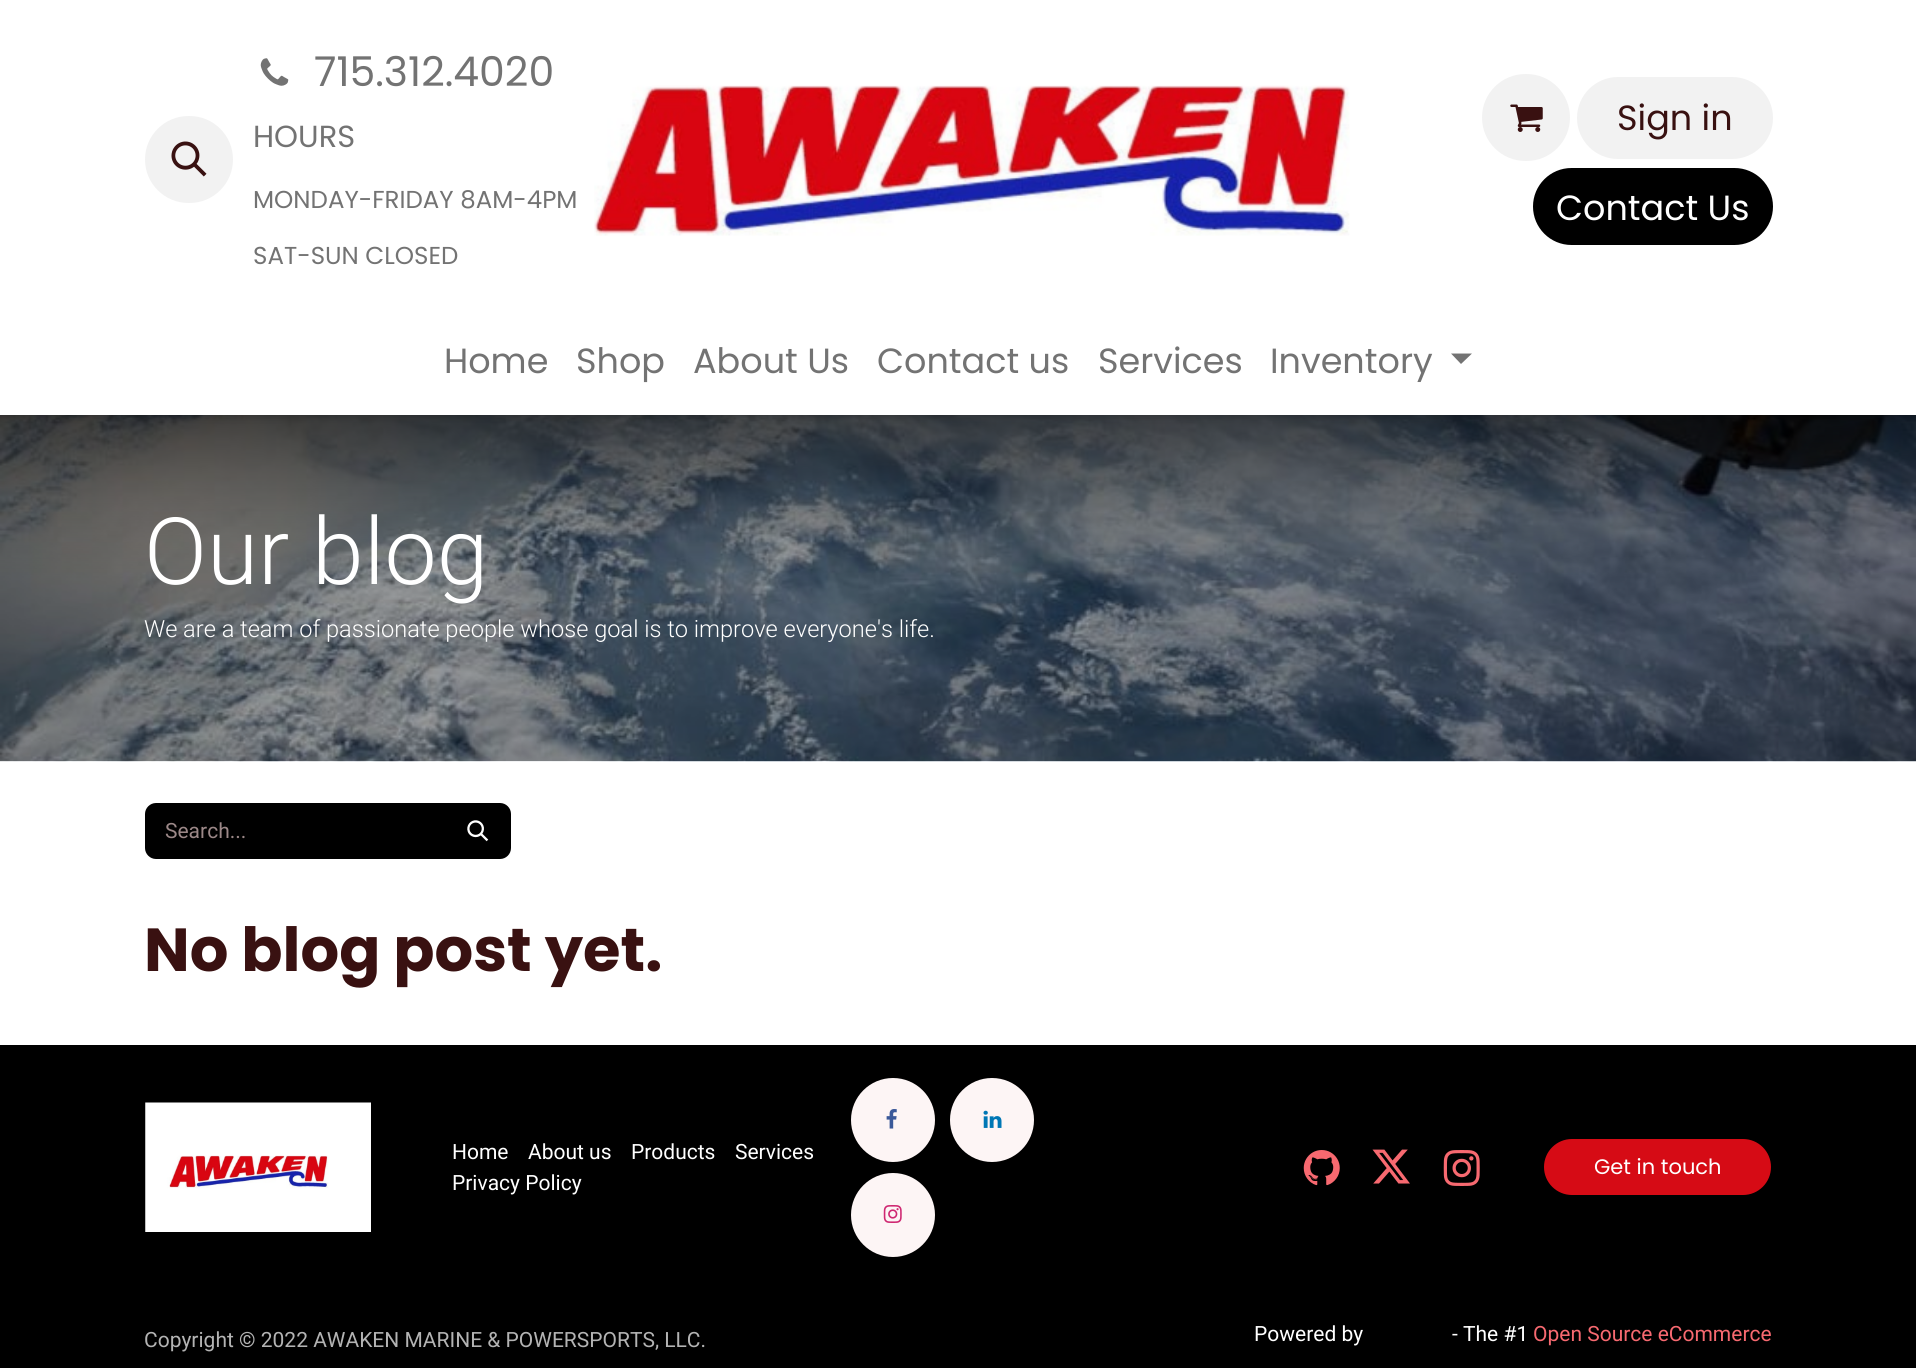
import math
import cairo



def rounded_rect(context, x, y, w, h, r):
    context.new_sub_path()
    for i, (u, v) in enumerate([(x + w - r, y + h - r), (x + r, y + h - r), (x + r, y + r), (x + w - r, y + r)]):
        context.arc(u, v, r, i * math.pi / 2, (i + 1) * math.pi / 2)
    context.close_path()


def draw_shadow(context, x, y, w, h, r, blur, alpha):
    context.push_group_with_content(cairo.Content.ALPHA)
    context.set_operator(cairo.Operator.SOURCE)
    for i in range(15, -16, -2):
        e = blur * i / 6
        if min(w, h) + 2 * e > 0:
            context.set_source_rgba(0, 0, 0, alpha * math.erfc((i - 1) / 8.5) / 2)
            rounded_rect(context, x - e, y - e, w + 2 * e, h + 2 * e, max(0, min(r + e + blur * .6, min(w, h) / 2 + e)))
            context.fill()
    context.mask(context.pop_group())


def draw_image(context, path, x, y, w, h):
    context.save()
    context.set_source_surface(cairo.ImageSurface.create_from_png(path), x, y)
    context.rectangle(x, y, w, h)
    context.fill()
    context.restore()


def draw(context):
    context.set_source_rgb(1, 1, 1)
    context.paint()
    draw_image(context, "images/5.png", 0, 415, 1916, 347)
    context.set_source_rgb(0, 0, 0)
    draw_shadow(context, 0, 0, 1916, 415, 0, 4.5, 0.25)
    context.set_source_rgb(1, 1, 1)
    context.rectangle(0, 0, 1916, 415)
    context.fill()
    context.set_source_rgb(242 / 255, 242 / 255, 242 / 255)
    rounded_rect(context, 145, 116, 88, 87, 43.5)
    context.fill()
    draw_image(context, "images/1.png", 171, 141, 36, 36)
    draw_image(context, "images/2.png", 260, 58, 29, 28)
    draw_image(context, "images/3.png", 594, 85, 756, 151)
    rounded_rect(context, 1482, 74, 88, 87, 43.5)
    context.fill()
    draw_image(context, "images/4.png", 1510, 104, 33, 28)
    rounded_rect(context, 1577, 77, 196, 82, 41)
    context.fill()
    context.set_source_rgb(0, 0, 0)
    rounded_rect(context, 1534, 169, 238, 75, 37.5)
    context.fill_preserve()
    context.stroke()
    context.set_source_rgb(115 / 255, 115 / 255, 115 / 255)
    context.new_path()
    context.move_to(1451, 353.5)
    context.line_to(1472, 353.5)
    context.line_to(1461, 364)
    context.close_path()
    context.fill()
    context.set_source_rgb(0, 0, 0)
    context.new_path()
    context.move_to(156, 803)
    context.line_to(446, 803)
    context.line_to(446, 859)
    context.line_to(156, 859)
    context.curve_to(150, 859, 145, 854, 145, 848)
    context.line_to(145, 814)
    context.curve_to(145, 808, 150, 803, 156, 803)
    context.close_path()
    context.fill()
    context.new_path()
    context.move_to(446, 804)
    context.line_to(500, 804)
    context.curve_to(505.5, 804, 510, 808.5, 510, 814)
    context.line_to(510, 848)
    context.curve_to(510, 853.5, 505.5, 858, 500, 858)
    context.line_to(446, 858)
    context.close_path()
    context.fill_preserve()
    context.stroke()
    draw_image(context, "images/6.png", 467, 820, 22, 22)
    context.rectangle(0, 1045, 1916, 323)
    context.fill()
    draw_image(context, "images/7.png", 145, 1102, 226, 130)
    context.set_source_rgb(253 / 255, 245 / 255, 245 / 255)
    context.arc(893, 1120, 42, 0, 2 * math.pi)
    context.fill()
    draw_image(context, "images/8.png", 886, 1109, 11, 20)
    context.arc(992, 1120, 42, 0, 2 * math.pi)
    context.fill()
    draw_image(context, "images/9.png", 983, 1110, 19, 18)
    context.arc(893, 1215, 42, 0, 2 * math.pi)
    context.fill()
    draw_image(context, "images/10.png", 883, 1205, 19, 18)
    draw_image(context, "images/11.png", 1303, 1150, 37, 36)
    draw_image(context, "images/12.png", 1372, 1149, 38, 35)
    draw_image(context, "images/13.png", 1443, 1150, 37, 36)
    context.set_source_rgb(214 / 255, 11 / 255, 21 / 255)
    rounded_rect(context, 1545, 1140, 225, 54, 27)
    context.fill_preserve()
    context.stroke()
    context.select_font_face("Poppins")
    context.set_font_size(41)
    context.set_source_rgb(115 / 255, 115 / 255, 115 / 255)
    context.move_to(314, 86)
    context.show_text("715.312.4020")
    context.set_font_size(30.5)
    context.move_to(253, 147)
    context.show_text("HOURS")
    context.set_font_size(24.5)
    context.move_to(253, 208)
    context.show_text("MONDAY-FRIDAY 8AM-4PM")
    context.move_to(253, 264)
    context.show_text("SAT-SUN CLOSED")
    context.set_font_size(35)
    context.set_source_rgb(57 / 255, 17 / 255, 17 / 255)
    context.move_to(1617, 130)
    context.show_text("Sign in")
    context.set_source_rgb(1, 1, 1)
    context.move_to(1556, 220)
    context.show_text("Contact Us")
    context.set_source_rgb(115 / 255, 115 / 255, 115 / 255)
    context.move_to(444, 373)
    context.show_text("Home")
    context.move_to(576, 373)
    context.show_text("Shop")
    context.move_to(693, 373)
    context.show_text("About Us")
    context.move_to(877, 373)
    context.show_text("Contact us")
    context.move_to(1098, 373)
    context.show_text("Services")
    context.move_to(1270, 373)
    context.show_text("Inventory")
    context.select_font_face("Roboto Light")
    context.set_font_size(93)
    context.set_source_rgb(1, 1, 1)
    context.move_to(144, 584)
    context.show_text("Our blog")
    context.set_font_size(23.6)
    context.move_to(144, 637)
    context.show_text("We are a team of passionate people whose goal is to improve everyone's life.")
    context.select_font_face("Roboto")
    context.set_font_size(21)
    context.set_source_rgb(156 / 255, 136 / 255, 136 / 255)
    context.move_to(165, 838)
    context.show_text("Search...")
    context.select_font_face("Poppins", cairo.FontSlant.NORMAL, cairo.FontWeight.BOLD)
    context.set_font_size(60.75)
    context.set_source_rgb(57 / 255, 17 / 255, 17 / 255)
    context.move_to(144, 971)
    context.show_text("No blog post yet.")
    context.select_font_face("Roboto")
    context.set_font_size(21)
    context.set_source_rgb(1, 1, 1)
    context.move_to(452, 1159)
    context.show_text("Home")
    context.move_to(528, 1159)
    context.show_text("About us")
    context.move_to(631, 1159)
    context.show_text("Products")
    context.move_to(735, 1159)
    context.show_text("Services")
    context.move_to(452, 1190)
    context.show_text("Privacy Policy")
    context.select_font_face("Poppins")
    context.move_to(1594, 1174)
    context.show_text("Get in touch")
    context.select_font_face("Roboto")
    context.set_source_rgb(179 / 255, 179 / 255, 179 / 255)
    context.move_to(144, 1347)
    context.show_text("Copyright © 2022 AWAKEN MARINE & POWERSPORTS, LLC.")
    context.set_source_rgb(1, 1, 1)
    context.move_to(1254, 1341)
    context.show_text("Powered by")
    context.move_to(1452, 1341)
    context.show_text("- The #1")
    context.set_source_rgb(247 / 255, 105 / 255, 112 / 255)
    context.move_to(1533, 1341)
    context.show_text("Open Source eCommerce")


surface = cairo.ImageSurface(cairo.Format.RGB24, 1916, 1368)
context = cairo.Context(surface)
options = cairo.FontOptions()
options.set_hint_metrics(cairo.HintMetrics.OFF)
options.set_hint_style(cairo.HintStyle.NONE)
context.set_font_options(options)
context.set_miter_limit(4)
draw(context)
surface.write_to_png("out.png")
